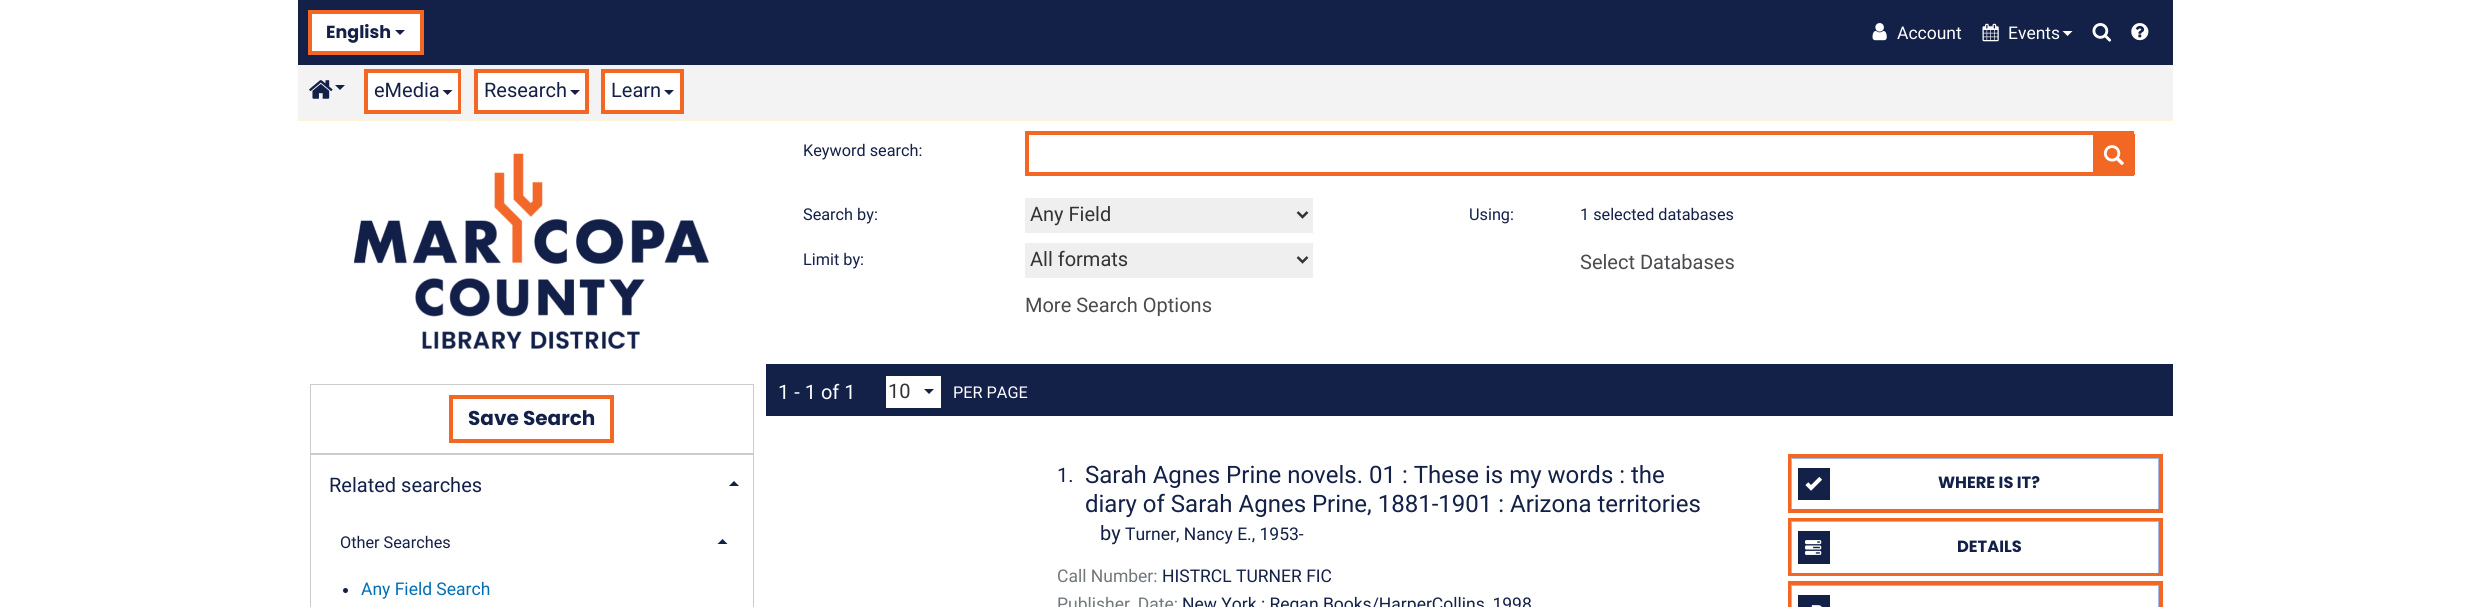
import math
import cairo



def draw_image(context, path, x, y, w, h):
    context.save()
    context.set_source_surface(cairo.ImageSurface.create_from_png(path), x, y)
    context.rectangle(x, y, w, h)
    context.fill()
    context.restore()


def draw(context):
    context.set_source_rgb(1, 1, 1)
    context.paint()
    context.set_source_rgb(19 / 255, 32 / 255, 72 / 255)
    context.rectangle(298, 0, 1875, 65)
    context.fill()
    context.set_source_rgb(253 / 255, 243 / 255, 217 / 255)
    context.rectangle(298, 120, 1875, 1)
    context.fill()
    context.set_source_rgb(1, 1, 1)
    context.rectangle(310, 12, 112, 41)
    context.fill_preserve()
    context.set_source_rgb(242 / 255, 103 / 255, 36 / 255)
    context.set_line_width(4)
    context.stroke()
    context.set_source_rgb(19 / 255, 32 / 255, 72 / 255)
    context.new_path()
    context.move_to(395, 30)
    context.line_to(405, 30)
    context.line_to(400, 35)
    context.close_path()
    context.fill()
    draw_image(context, "images/1.png", 1872, 23, 15, 18)
    draw_image(context, "images/2.png", 1982, 23, 17, 19)
    context.set_source_rgb(1, 1, 1)
    context.new_path()
    context.move_to(2062.5, 31)
    context.line_to(2072.5, 31)
    context.line_to(2067.5, 36)
    context.close_path()
    context.fill()
    draw_image(context, "images/3.png", 2092, 23, 20, 19)
    draw_image(context, "images/4.png", 2131, 23, 18, 18)
    context.set_source_rgb(243 / 255, 243 / 255, 243 / 255)
    context.rectangle(298, 65, 1875, 55)
    context.fill()
    draw_image(context, "images/5.png", 309, 80, 24, 19)
    context.set_source_rgb(19 / 255, 32 / 255, 72 / 255)
    context.new_path()
    context.move_to(335, 85)
    context.line_to(345, 85)
    context.line_to(340, 90)
    context.close_path()
    context.fill()
    context.rectangle(366, 71, 93, 41)
    context.set_source_rgb(242 / 255, 103 / 255, 36 / 255)
    context.stroke()
    context.set_source_rgb(1, 1, 1)
    context.rectangle(368, 73, 90, 37)
    context.fill()
    context.set_source_rgb(19 / 255, 32 / 255, 72 / 255)
    context.new_path()
    context.move_to(442.5, 90)
    context.line_to(452.5, 90)
    context.line_to(447.5, 95)
    context.close_path()
    context.fill()
    context.set_source_rgb(1, 1, 1)
    context.rectangle(476, 71, 111, 41)
    context.fill_preserve()
    context.set_source_rgb(242 / 255, 103 / 255, 36 / 255)
    context.stroke()
    context.set_source_rgb(19 / 255, 32 / 255, 72 / 255)
    context.new_path()
    context.move_to(570, 90)
    context.line_to(580, 90)
    context.line_to(575, 95)
    context.close_path()
    context.fill()
    context.set_source_rgb(1, 1, 1)
    context.rectangle(603, 71, 79, 41)
    context.fill_preserve()
    context.set_source_rgb(242 / 255, 103 / 255, 36 / 255)
    context.stroke()
    context.set_source_rgb(19 / 255, 32 / 255, 72 / 255)
    context.new_path()
    context.move_to(664, 90)
    context.line_to(674, 90)
    context.line_to(669, 95)
    context.close_path()
    context.fill()
    draw_image(context, "images/6.png", 354, 153, 355, 196)
    context.rectangle(310.5, 384.5, 443, 69)
    context.set_source_rgb(204 / 255, 204 / 255, 204 / 255)
    context.set_line_width(1)
    context.stroke()
    context.rectangle(451, 397, 161, 44)
    context.set_source_rgb(242 / 255, 103 / 255, 36 / 255)
    context.set_line_width(4)
    context.stroke()
    context.rectangle(310.5, 454.5, 443, 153)
    context.set_source_rgb(204 / 255, 204 / 255, 204 / 255)
    context.set_line_width(1)
    context.stroke()
    context.set_source_rgb(19 / 255, 32 / 255, 72 / 255)
    context.new_path()
    context.move_to(739, 486)
    context.line_to(729, 486)
    context.line_to(734, 481)
    context.close_path()
    context.fill()
    context.new_path()
    context.move_to(727.5, 544)
    context.line_to(717.5, 544)
    context.line_to(722.5, 539)
    context.close_path()
    context.fill()
    context.arc(345.5, 590.5, 2.5, 0, 2 * math.pi)
    context.fill()
    context.rectangle(1027, 133, 1105, 41)
    context.set_source_rgb(242 / 255, 103 / 255, 36 / 255)
    context.set_line_width(4)
    context.stroke()
    context.rectangle(2093, 134, 42, 41)
    context.fill()
    draw_image(context, "images/7.png", 2103, 145, 21, 21)
    context.set_source_rgb(239 / 255, 239 / 255, 239 / 255)
    context.rectangle(1025, 198, 288, 35)
    context.fill()
    context.new_path()
    context.move_to(1297.5, 212)
    context.line_to(1302.5, 217)
    context.line_to(1307.5, 212)
    context.set_source_rgb(51 / 255, 51 / 255, 51 / 255)
    context.set_line_width(2.5)
    context.stroke()
    context.set_source_rgb(239 / 255, 239 / 255, 239 / 255)
    context.rectangle(1025, 243, 288, 35)
    context.fill()
    context.new_path()
    context.move_to(1297.5, 257)
    context.line_to(1302.5, 262)
    context.line_to(1307.5, 257)
    context.set_source_rgb(51 / 255, 51 / 255, 51 / 255)
    context.stroke()
    context.set_source_rgb(19 / 255, 32 / 255, 72 / 255)
    context.rectangle(766, 364, 1407, 52)
    context.fill()
    context.set_source_rgb(1, 1, 1)
    context.rectangle(886, 376, 55, 32)
    context.fill()
    context.set_source_rgb(19 / 255, 32 / 255, 72 / 255)
    context.new_path()
    context.move_to(924, 389)
    context.line_to(934, 389)
    context.line_to(929, 394)
    context.close_path()
    context.fill()
    context.rectangle(1790, 456, 371, 55)
    context.set_source_rgb(242 / 255, 103 / 255, 36 / 255)
    context.set_line_width(4)
    context.stroke()
    context.set_source_rgb(166 / 255, 182 / 255, 231 / 255)
    context.rectangle(1791, 458, 368, 1)
    context.fill()
    context.rectangle(2158, 458, 1, 51)
    context.fill()
    context.rectangle(1791, 458, 1, 51)
    context.fill()
    context.set_source_rgb(19 / 255, 32 / 255, 72 / 255)
    context.rectangle(1798, 468, 32, 32)
    context.fill()
    draw_image(context, "images/8.png", 1805, 477, 17, 14)
    context.rectangle(1790, 520, 371, 54)
    context.set_source_rgb(242 / 255, 103 / 255, 36 / 255)
    context.stroke()
    context.set_source_rgb(1, 1, 1)
    context.rectangle(1792, 572, 366, 1)
    context.fill()
    context.set_source_rgb(166 / 255, 182 / 255, 231 / 255)
    context.rectangle(1791, 521, 368, 1)
    context.fill()
    context.rectangle(2158, 521, 1, 52)
    context.fill()
    context.rectangle(1791, 521, 1, 52)
    context.fill()
    context.set_source_rgb(19 / 255, 32 / 255, 72 / 255)
    context.rectangle(1798, 531, 32, 33)
    context.fill()
    draw_image(context, "images/9.png", 1805, 540, 17, 15)
    context.rectangle(1790, 583, 371, 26)
    context.set_source_rgb(242 / 255, 103 / 255, 36 / 255)
    context.stroke()
    context.set_source_rgb(166 / 255, 182 / 255, 231 / 255)
    context.rectangle(1791, 585, 368, 1)
    context.fill()
    context.rectangle(2158, 585, 1, 22)
    context.fill()
    context.rectangle(1791, 585, 1, 22)
    context.fill()
    context.set_source_rgb(19 / 255, 32 / 255, 72 / 255)
    context.rectangle(1798, 595, 32, 12)
    context.fill()
    draw_image(context, "images/10.png", 1811, 605, 11, 2)
    context.select_font_face("Poppins", cairo.FontSlant.NORMAL, cairo.FontWeight.BOLD)
    context.set_font_size(17.5)
    context.move_to(326, 38)
    context.show_text("English")
    context.select_font_face("Roboto")
    context.set_source_rgb(1, 1, 1)
    context.move_to(1897, 39)
    context.show_text("Account")
    context.move_to(2008, 39)
    context.show_text("Events")
    context.set_font_size(20)
    context.set_source_rgb(19 / 255, 32 / 255, 72 / 255)
    context.move_to(374, 97)
    context.show_text("eMedia")
    context.move_to(484, 97)
    context.show_text("Research")
    context.move_to(611, 97)
    context.show_text("Learn")
    context.select_font_face("Poppins", cairo.FontSlant.NORMAL, cairo.FontWeight.BOLD)
    context.move_to(468, 425)
    context.show_text("Save Search")
    context.select_font_face("Roboto")
    context.move_to(329, 492)
    context.show_text("Related searches")
    context.set_font_size(16.25)
    context.move_to(340, 548)
    context.show_text("Other Searches")
    context.set_font_size(17.5)
    context.set_source_rgb(0, 110 / 255, 181 / 255)
    context.move_to(361, 595)
    context.show_text("Any Field Search")
    context.set_font_size(16.25)
    context.set_source_rgb(19 / 255, 32 / 255, 72 / 255)
    context.move_to(803, 156)
    context.show_text("Keyword search:")
    context.move_to(803, 220)
    context.show_text("Search by:")
    context.set_font_size(20)
    context.set_source_rgb(51 / 255, 51 / 255, 51 / 255)
    context.move_to(1030, 221)
    context.show_text("Any Field")
    context.set_font_size(16.25)
    context.set_source_rgb(19 / 255, 32 / 255, 72 / 255)
    context.move_to(803, 265)
    context.show_text("Limit by:")
    context.set_font_size(20)
    context.set_source_rgb(51 / 255, 51 / 255, 51 / 255)
    context.move_to(1030, 266)
    context.show_text("All formats")
    context.set_font_size(16.25)
    context.set_source_rgb(19 / 255, 32 / 255, 72 / 255)
    context.move_to(1469, 220)
    context.show_text("Using:")
    context.move_to(1580, 220)
    context.show_text("1 selected databases")
    context.set_font_size(20)
    context.set_source_rgb(73 / 255, 75 / 255, 78 / 255)
    context.move_to(1580, 269)
    context.show_text("Select Databases")
    context.move_to(1025, 312)
    context.show_text("More Search Options")
    context.set_source_rgb(1, 1, 1)
    context.move_to(778, 399)
    context.show_text("1 - 1 of 1")
    context.set_source_rgb(51 / 255, 51 / 255, 51 / 255)
    context.move_to(888, 398)
    context.show_text("10")
    context.set_font_size(16.25)
    context.set_source_rgb(1, 1, 1)
    context.move_to(953, 398)
    context.show_text("PER PAGE")
    context.set_font_size(20)
    context.set_source_rgb(19 / 255, 32 / 255, 72 / 255)
    context.move_to(1057, 482)
    context.show_text("1.")
    context.set_font_size(24)
    context.move_to(1085, 483)
    context.show_text("Sarah Agnes Prine novels. 01 : These is my words : the")
    context.move_to(1085, 512)
    context.show_text("diary of Sarah Agnes Prine, 1881-1901 : Arizona territories")
    context.set_font_size(20)
    context.move_to(1100, 540)
    context.show_text("by")
    context.set_font_size(17.5)
    context.move_to(1125, 540)
    context.show_text("Turner, Nancy E., 1953-")
    context.set_source_rgb(113 / 255, 119 / 255, 122 / 255)
    context.move_to(1057, 582)
    context.show_text("Call Number:")
    context.set_source_rgb(19 / 255, 32 / 255, 72 / 255)
    context.move_to(1162, 582)
    context.show_text("HISTRCL TURNER FIC")
    context.set_source_rgb(113 / 255, 119 / 255, 122 / 255)
    context.move_to(1057, 610)
    context.show_text("Publisher, Date:")
    context.set_source_rgb(19 / 255, 32 / 255, 72 / 255)
    context.move_to(1182, 610)
    context.show_text("New York : Regan Books/HarperCollins, 1998")
    context.select_font_face("Poppins", cairo.FontSlant.NORMAL, cairo.FontWeight.BOLD)
    context.set_font_size(16.25)
    context.move_to(1938, 488)
    context.show_text("WHERE IS IT?")
    context.move_to(1957, 552)
    context.show_text("DETAILS")


surface = cairo.ImageSurface(cairo.Format.RGB24, 2468, 607)
context = cairo.Context(surface)
options = cairo.FontOptions()
options.set_hint_metrics(cairo.HintMetrics.OFF)
options.set_hint_style(cairo.HintStyle.NONE)
context.set_font_options(options)
context.set_miter_limit(4)
draw(context)
surface.write_to_png("out.png")
